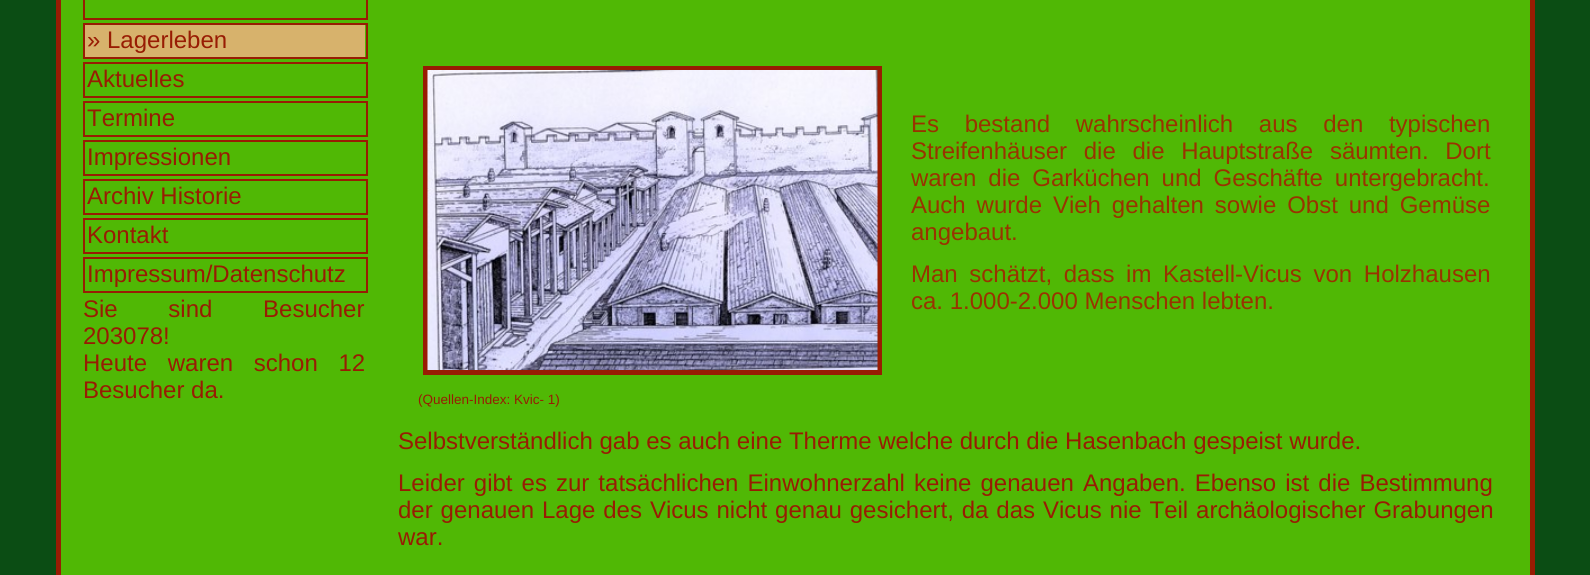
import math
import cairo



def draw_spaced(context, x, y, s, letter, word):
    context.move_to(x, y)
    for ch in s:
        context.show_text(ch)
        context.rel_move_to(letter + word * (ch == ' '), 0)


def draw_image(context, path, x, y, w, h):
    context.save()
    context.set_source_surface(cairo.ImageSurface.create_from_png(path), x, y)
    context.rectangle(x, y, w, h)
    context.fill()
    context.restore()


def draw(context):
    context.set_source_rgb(11 / 255, 77 / 255, 20 / 255)
    context.paint()
    context.set_source_rgb(80 / 255, 184 / 255, 5 / 255)
    context.rectangle(61, 0, 1469, 575)
    context.fill()
    context.set_source_rgb(152 / 255, 28 / 255, 3 / 255)
    context.rectangle(1530, 0, 5, 575)
    context.fill()
    context.rectangle(56, 0, 5, 575)
    context.fill()
    context.rectangle(84, -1, 283, 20)
    context.stroke()
    context.set_source_rgb(215 / 255, 178 / 255, 108 / 255)
    context.rectangle(85, 25, 280, 32)
    context.fill()
    context.rectangle(84, 24, 283, 34)
    context.set_source_rgb(152 / 255, 28 / 255, 3 / 255)
    context.stroke()
    context.rectangle(84, 63, 283, 34)
    context.stroke()
    context.rectangle(84, 102, 283, 34)
    context.stroke()
    context.rectangle(84, 141, 283, 34)
    context.stroke()
    context.rectangle(84, 180, 283, 34)
    context.stroke()
    context.rectangle(84, 219, 283, 34)
    context.stroke()
    context.rectangle(84, 258, 283, 34)
    context.stroke()
    context.rectangle(425.5, 68.5, 454, 304)
    context.set_line_width(5)
    context.stroke()
    draw_image(context, "images/1.png", 427, 70, 451, 300)
    context.select_font_face("Liberation Sans")
    context.set_font_size(24)
    context.move_to(87, 48)
    context.show_text("» Lagerleben")
    context.move_to(87, 87)
    context.show_text("Aktuelles")
    context.move_to(87, 126)
    context.show_text("Termine")
    context.move_to(87, 165)
    context.show_text("Impressionen")
    context.move_to(87, 204)
    context.show_text("Archiv Historie")
    context.move_to(87, 243)
    context.show_text("Kontakt")
    context.move_to(87, 282)
    context.show_text("Impressum/Datenschutz")
    draw_spaced(context, 83, 317, "Sie sind Besucher", 0, 44)
    context.move_to(83, 344)
    context.show_text("203078!")
    draw_spaced(context, 83, 371, "Heute waren schon 12", 0, 14)
    context.move_to(83, 398)
    context.show_text("Besucher da.")
    context.set_source_rgb(153 / 255, 51 / 255, 0)
    draw_spaced(context, 911, 132, "Es bestand wahrscheinlich aus den typischen", 0, 19)
    draw_spaced(context, 911, 159, "Streifenhäuser die die Hauptstraße säumten. Dort", 0, 10)
    draw_spaced(context, 911, 186, "waren die Garküchen und Geschäfte untergebracht.", 0, 5.25)
    draw_spaced(context, 911, 213, "Auch wurde Vieh gehalten sowie Obst und Gemüse", 0, 4.25)
    context.move_to(911, 240)
    context.show_text("angebaut.")
    draw_spaced(context, 911, 282, "Man schätzt, dass im Kastell-Vicus von Holzhausen", 0, 5)
    context.move_to(911, 309)
    context.show_text("ca. 1.000-2.000 Menschen lebten.")
    context.set_font_size(13.5)
    context.set_source_rgb(152 / 255, 28 / 255, 3 / 255)
    context.move_to(418, 404)
    context.show_text("(Quellen-Index: Kvic- 1)")
    context.set_font_size(24)
    context.move_to(398, 449)
    context.show_text("Selbstverständlich gab es auch eine Therme welche durch die Hasenbach gespeist wurde.")
    draw_spaced(context, 398, 491, "Leider gibt es zur tatsächlichen Einwohnerzahl keine genauen Angaben. Ebenso ist die Bestimmung", 0, 2.4)
    draw_spaced(context, 398, 518, "der genauen Lage des Vicus nicht genau gesichert, da das Vicus nie Teil archäologischer Grabungen", 0, 1.25)
    context.move_to(398, 545)
    context.show_text("war.")


surface = cairo.ImageSurface(cairo.Format.RGB24, 1590, 575)
context = cairo.Context(surface)
options = cairo.FontOptions()
options.set_hint_metrics(cairo.HintMetrics.OFF)
options.set_hint_style(cairo.HintStyle.NONE)
context.set_font_options(options)
context.set_miter_limit(4)
draw(context)
surface.write_to_png("out.png")
